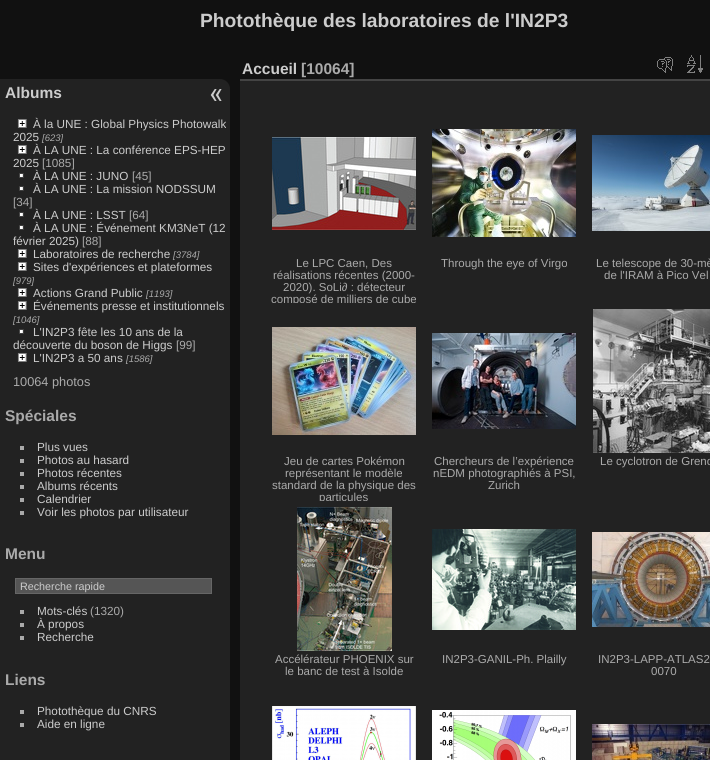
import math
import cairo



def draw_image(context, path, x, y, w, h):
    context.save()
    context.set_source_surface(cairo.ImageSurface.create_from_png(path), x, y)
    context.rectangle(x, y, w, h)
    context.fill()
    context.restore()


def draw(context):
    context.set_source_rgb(17 / 255, 17 / 255, 17 / 255)
    context.paint()
    context.set_source_rgb(34 / 255, 34 / 255, 34 / 255)
    context.new_path()
    context.move_to(0, 79)
    context.line_to(220, 79)
    context.curve_to(225.5, 79, 230, 83.5, 230, 89)
    context.line_to(230, 760)
    context.curve_to(230, 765.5, 225.5, 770, 220, 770)
    context.line_to(0, 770)
    context.close_path()
    context.fill()
    draw_image(context, "images/1.png", 17, 119, 10, 9)
    draw_image(context, "images/1.png", 17, 145, 10, 9)
    draw_image(context, "images/2.png", 19, 173, 5, 5)
    draw_image(context, "images/2.png", 19, 186, 5, 5)
    draw_image(context, "images/2.png", 19, 212, 5, 5)
    draw_image(context, "images/2.png", 19, 225, 5, 5)
    draw_image(context, "images/1.png", 17, 249, 10, 9)
    draw_image(context, "images/1.png", 17, 262, 10, 9)
    draw_image(context, "images/1.png", 17, 288, 10, 9)
    draw_image(context, "images/1.png", 17, 301, 10, 9)
    draw_image(context, "images/2.png", 19, 329, 5, 5)
    draw_image(context, "images/1.png", 17, 353, 10, 9)
    context.set_source_rgb(170 / 255, 170 / 255, 170 / 255)
    context.rectangle(20, 446, 4, 4)
    context.fill()
    context.rectangle(20, 459, 4, 4)
    context.fill()
    context.rectangle(20, 472, 4, 4)
    context.fill()
    context.rectangle(20, 485, 4, 4)
    context.fill()
    context.rectangle(20, 498, 4, 4)
    context.fill()
    context.rectangle(20, 511, 4, 4)
    context.fill()
    context.set_source_rgb(85 / 255, 85 / 255, 85 / 255)
    context.rectangle(15.5, 578.5, 196, 15)
    context.fill_preserve()
    context.set_source_rgb(102 / 255, 102 / 255, 102 / 255)
    context.set_line_width(1)
    context.stroke()
    context.set_source_rgb(170 / 255, 170 / 255, 170 / 255)
    context.rectangle(20, 610, 4, 4)
    context.fill()
    context.rectangle(20, 623, 4, 4)
    context.fill()
    context.rectangle(20, 636, 4, 4)
    context.fill()
    context.rectangle(20, 710, 4, 4)
    context.fill()
    context.rectangle(20, 723, 4, 4)
    context.fill()
    context.set_source_rgb(34 / 255, 34 / 255, 34 / 255)
    context.rectangle(240, 81, 470, 679)
    context.fill()
    context.set_source_rgb(68 / 255, 68 / 255, 68 / 255)
    context.rectangle(240, 79, 470, 2)
    context.fill()
    draw_image(context, "images/3.png", 657, 57, 16, 16)
    draw_image(context, "images/4.png", 687, 55, 16, 18)
    draw_image(context, "images/5.png", 272, 137, 144, 93)
    draw_image(context, "images/6.png", 432, 129, 144, 108)
    draw_image(context, "images/7.png", 592, 135, 118, 96)
    draw_image(context, "images/8.png", 272, 327, 144, 108)
    draw_image(context, "images/9.png", 432, 333, 144, 96)
    draw_image(context, "images/10.png", 593, 309, 117, 144)
    draw_image(context, "images/11.png", 297, 507, 95, 144)
    draw_image(context, "images/12.png", 432, 529, 144, 101)
    draw_image(context, "images/13.png", 592, 532, 118, 95)
    draw_image(context, "images/14.png", 272, 706, 144, 54)
    draw_image(context, "images/15.png", 432, 710, 144, 50)
    draw_image(context, "images/16.png", 592, 724, 118, 36)
    draw_image(context, "images/17.png", 210, 89, 12, 12)
    context.select_font_face("Liberation Sans", cairo.FontSlant.NORMAL, cairo.FontWeight.BOLD)
    context.set_font_size(19.25)
    context.set_source_rgb(204 / 255, 204 / 255, 204 / 255)
    context.move_to(200, 27)
    context.show_text("Photothèque des laboratoires de l'IN2P3")
    context.set_font_size(15.5)
    context.move_to(5, 98)
    context.show_text("Albums")
    context.select_font_face("Liberation Sans")
    context.set_font_size(11.75)
    context.move_to(33, 128)
    context.show_text("À la UNE : Global Physics Photowalk")
    context.move_to(13, 141)
    context.show_text("2025")
    context.select_font_face("Liberation Sans", cairo.FontSlant.ITALIC)
    context.set_font_size(9.5)
    context.set_source_rgb(170 / 255, 170 / 255, 170 / 255)
    context.move_to(42, 141)
    context.show_text("[623]")
    context.select_font_face("Liberation Sans")
    context.set_font_size(11.75)
    context.set_source_rgb(204 / 255, 204 / 255, 204 / 255)
    context.move_to(33, 154)
    context.show_text("À LA UNE : La conférence EPS-HEP")
    context.move_to(13, 167)
    context.show_text("2025")
    context.set_source_rgb(170 / 255, 170 / 255, 170 / 255)
    context.move_to(42, 167)
    context.show_text("[1085]")
    context.set_source_rgb(204 / 255, 204 / 255, 204 / 255)
    context.move_to(33, 180)
    context.show_text("À LA UNE : JUNO")
    context.set_source_rgb(170 / 255, 170 / 255, 170 / 255)
    context.move_to(132, 180)
    context.show_text("[45]")
    context.set_source_rgb(204 / 255, 204 / 255, 204 / 255)
    context.move_to(33, 193)
    context.show_text("À LA UNE : La mission NODSSUM")
    context.set_source_rgb(170 / 255, 170 / 255, 170 / 255)
    context.move_to(13, 206)
    context.show_text("[34]")
    context.set_source_rgb(204 / 255, 204 / 255, 204 / 255)
    context.move_to(33, 219)
    context.show_text("À LA UNE : LSST")
    context.set_source_rgb(170 / 255, 170 / 255, 170 / 255)
    context.move_to(129, 219)
    context.show_text("[64]")
    context.set_source_rgb(204 / 255, 204 / 255, 204 / 255)
    context.move_to(33, 232)
    context.show_text("À LA UNE : Événement KM3NeT (12")
    context.move_to(13, 245)
    context.show_text("février 2025)")
    context.set_source_rgb(170 / 255, 170 / 255, 170 / 255)
    context.move_to(82, 245)
    context.show_text("[88]")
    context.set_source_rgb(204 / 255, 204 / 255, 204 / 255)
    context.move_to(33, 258)
    context.show_text("Laboratoires de recherche")
    context.select_font_face("Liberation Sans", cairo.FontSlant.ITALIC)
    context.set_font_size(9.5)
    context.set_source_rgb(170 / 255, 170 / 255, 170 / 255)
    context.move_to(173, 258)
    context.show_text("[3784]")
    context.select_font_face("Liberation Sans")
    context.set_font_size(11.75)
    context.set_source_rgb(204 / 255, 204 / 255, 204 / 255)
    context.move_to(33, 271)
    context.show_text("Sites d'expériences et plateformes")
    context.select_font_face("Liberation Sans", cairo.FontSlant.ITALIC)
    context.set_font_size(9.5)
    context.set_source_rgb(170 / 255, 170 / 255, 170 / 255)
    context.move_to(13, 284)
    context.show_text("[979]")
    context.select_font_face("Liberation Sans")
    context.set_font_size(11.75)
    context.set_source_rgb(204 / 255, 204 / 255, 204 / 255)
    context.move_to(33, 297)
    context.show_text("Actions Grand Public")
    context.select_font_face("Liberation Sans", cairo.FontSlant.ITALIC)
    context.set_font_size(9.5)
    context.set_source_rgb(170 / 255, 170 / 255, 170 / 255)
    context.move_to(146, 297)
    context.show_text("[1193]")
    context.select_font_face("Liberation Sans")
    context.set_font_size(11.75)
    context.set_source_rgb(204 / 255, 204 / 255, 204 / 255)
    context.move_to(33, 310)
    context.show_text("Événements presse et institutionnels")
    context.select_font_face("Liberation Sans", cairo.FontSlant.ITALIC)
    context.set_font_size(9.5)
    context.set_source_rgb(170 / 255, 170 / 255, 170 / 255)
    context.move_to(13, 323)
    context.show_text("[1046]")
    context.select_font_face("Liberation Sans")
    context.set_font_size(11.75)
    context.set_source_rgb(204 / 255, 204 / 255, 204 / 255)
    context.move_to(33, 336)
    context.show_text("L'IN2P3 fête les 10 ans de la")
    context.move_to(13, 349)
    context.show_text("découverte du boson de Higgs")
    context.set_source_rgb(170 / 255, 170 / 255, 170 / 255)
    context.move_to(176, 349)
    context.show_text("[99]")
    context.set_source_rgb(204 / 255, 204 / 255, 204 / 255)
    context.move_to(33, 362)
    context.show_text("L'IN2P3 a 50 ans")
    context.select_font_face("Liberation Sans", cairo.FontSlant.ITALIC)
    context.set_font_size(9.5)
    context.set_source_rgb(170 / 255, 170 / 255, 170 / 255)
    context.move_to(126, 362)
    context.show_text("[1586]")
    context.select_font_face("Liberation Sans")
    context.set_font_size(12.75)
    context.move_to(13, 386)
    context.show_text("10064 photos")
    context.select_font_face("Liberation Sans", cairo.FontSlant.NORMAL, cairo.FontWeight.BOLD)
    context.set_font_size(15.5)
    context.move_to(5, 421)
    context.show_text("Spéciales")
    context.select_font_face("Liberation Sans")
    context.set_font_size(11.75)
    context.set_source_rgb(204 / 255, 204 / 255, 204 / 255)
    context.move_to(37, 451)
    context.show_text("Plus vues")
    context.move_to(37, 464)
    context.show_text("Photos au hasard")
    context.move_to(37, 477)
    context.show_text("Photos récentes")
    context.move_to(37, 490)
    context.show_text("Albums récents")
    context.move_to(37, 503)
    context.show_text("Calendrier")
    context.move_to(37, 516)
    context.show_text("Voir les photos par utilisateur")
    context.select_font_face("Liberation Sans", cairo.FontSlant.NORMAL, cairo.FontWeight.BOLD)
    context.set_font_size(15.5)
    context.set_source_rgb(170 / 255, 170 / 255, 170 / 255)
    context.move_to(5, 559)
    context.show_text("Menu")
    context.select_font_face("Liberation Sans")
    context.set_font_size(10.75)
    context.set_source_rgb(204 / 255, 204 / 255, 204 / 255)
    context.move_to(20, 590)
    context.show_text("Recherche rapide")
    context.set_font_size(11.75)
    context.move_to(37, 615)
    context.show_text("Mots-clés")
    context.set_source_rgb(170 / 255, 170 / 255, 170 / 255)
    context.move_to(90, 615)
    context.show_text("(1320)")
    context.set_source_rgb(204 / 255, 204 / 255, 204 / 255)
    context.move_to(37, 628)
    context.show_text("À propos")
    context.move_to(37, 641)
    context.show_text("Recherche")
    context.select_font_face("Liberation Sans", cairo.FontSlant.NORMAL, cairo.FontWeight.BOLD)
    context.set_font_size(15.5)
    context.set_source_rgb(170 / 255, 170 / 255, 170 / 255)
    context.move_to(5, 685)
    context.show_text("Liens")
    context.select_font_face("Liberation Sans")
    context.set_font_size(11.75)
    context.set_source_rgb(204 / 255, 204 / 255, 204 / 255)
    context.move_to(37, 715)
    context.show_text("Photothèque du CNRS")
    context.move_to(37, 728)
    context.show_text("Aide en ligne")
    context.select_font_face("Liberation Sans", cairo.FontSlant.NORMAL, cairo.FontWeight.BOLD)
    context.set_font_size(15.5)
    context.move_to(242, 74)
    context.show_text("Accueil")
    context.set_source_rgb(170 / 255, 170 / 255, 170 / 255)
    context.move_to(301, 74)
    context.show_text("[10064]")
    context.select_font_face("Liberation Sans")
    context.set_font_size(11.5)
    context.move_to(296, 267)
    context.show_text("Le LPC Caen, Des")
    context.move_to(273, 279)
    context.show_text("réalisations récentes (2000-")
    context.move_to(283, 291)
    context.show_text("2020). SoLi∂ : détecteur")
    context.save()
    context.rectangle(271, 257, 146, 46)
    context.clip()
    context.move_to(271, 303)
    context.show_text("composé de milliers de cube")
    context.restore()
    context.move_to(441, 267)
    context.show_text("Through the eye of Virgo")
    context.move_to(596, 267)
    context.show_text("Le telescope de 30-mè")
    context.move_to(604, 279)
    context.show_text("de l'IRAM à Pico Vel")
    context.move_to(284, 465)
    context.show_text("Jeu de cartes Pokémon")
    context.move_to(285, 477)
    context.show_text("représentant le modèle")
    context.move_to(272, 489)
    context.show_text("standard de la physique des")
    context.save()
    context.rectangle(271, 455, 146, 46)
    context.clip()
    context.move_to(319, 501)
    context.show_text("particules")
    context.restore()
    context.move_to(434, 465)
    context.show_text("Chercheurs de l’expérience")
    context.move_to(433, 477)
    context.show_text("nEDM photographiés à PSI,")
    context.move_to(488, 489)
    context.show_text("Zurich")
    context.move_to(600, 465)
    context.show_text("Le cyclotron de Greno")
    context.move_to(275, 663)
    context.show_text("Accélérateur PHOENIX sur")
    context.move_to(285, 675)
    context.show_text("le banc de test à Isolde")
    context.move_to(442, 663)
    context.show_text("IN2P3-GANIL-Ph. Plailly")
    context.move_to(598, 663)
    context.show_text("IN2P3-LAPP-ATLAS2")
    context.move_to(651, 675)
    context.show_text("0070")


surface = cairo.ImageSurface(cairo.Format.RGB24, 710, 760)
context = cairo.Context(surface)
options = cairo.FontOptions()
options.set_hint_metrics(cairo.HintMetrics.OFF)
options.set_hint_style(cairo.HintStyle.NONE)
context.set_font_options(options)
context.set_miter_limit(4)
draw(context)
surface.write_to_png("out.png")
